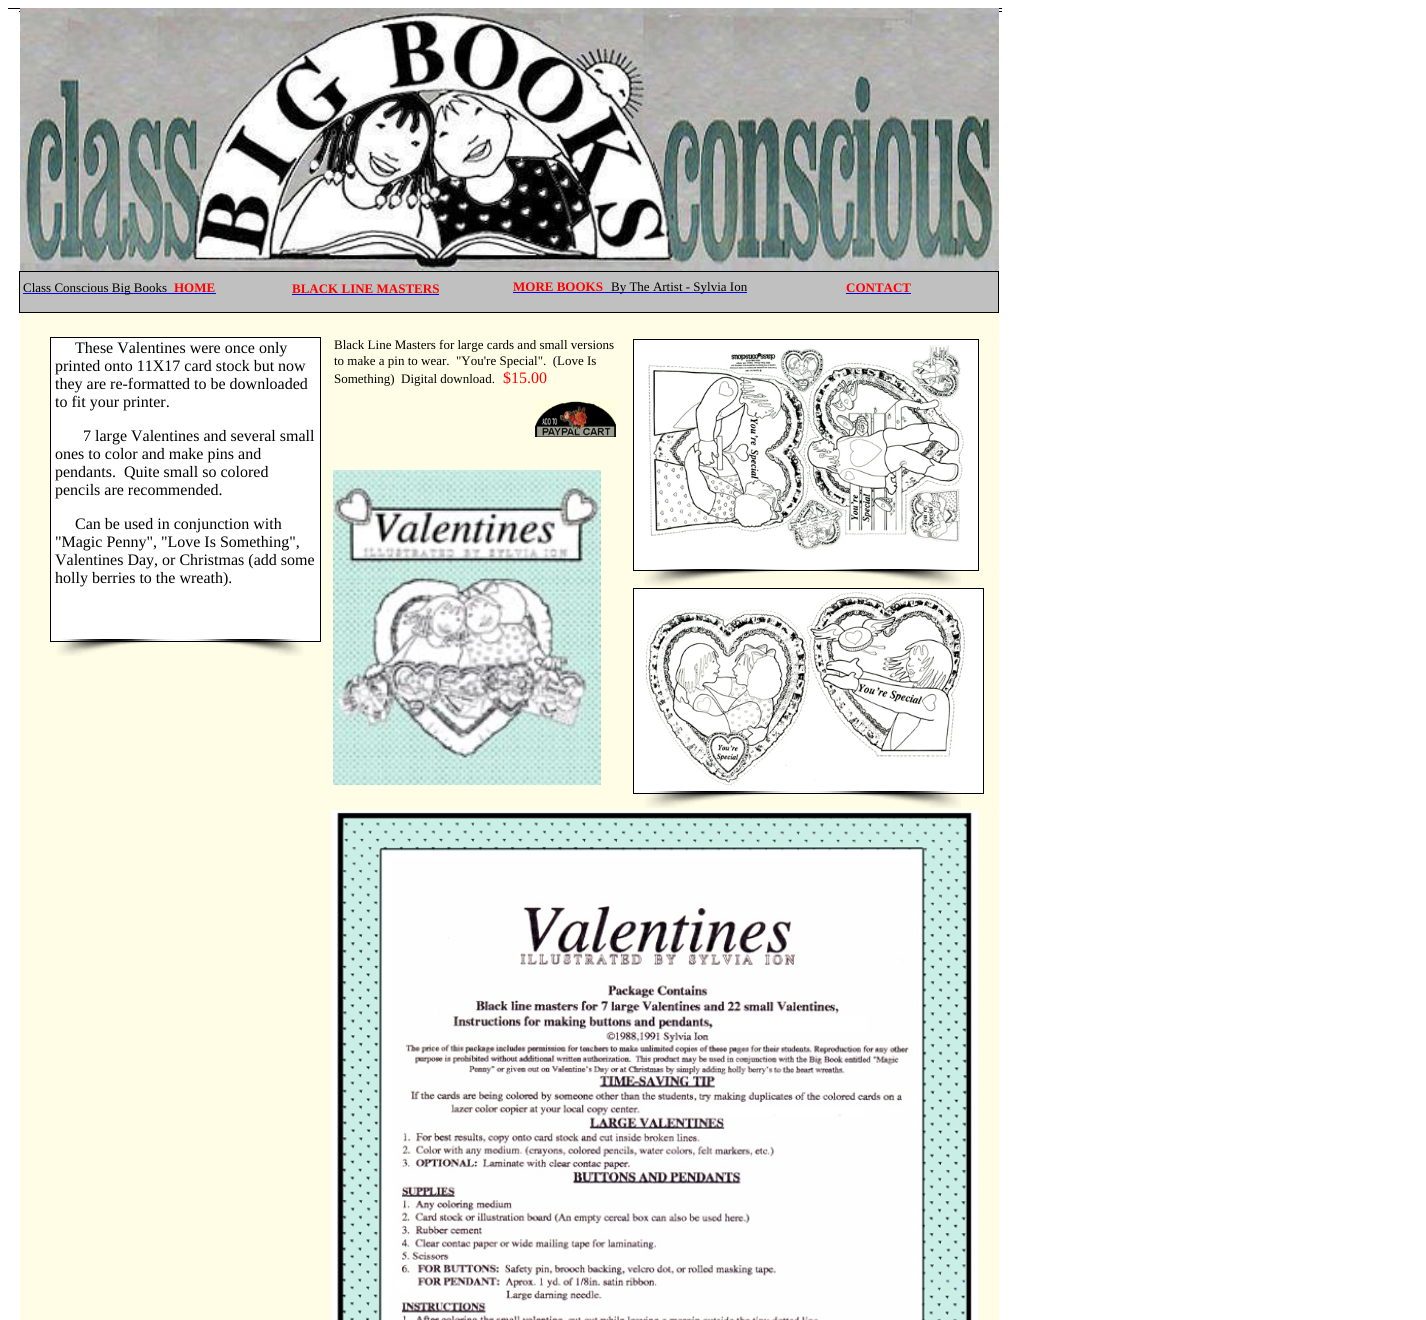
import math
import cairo



def draw_image(context, path, x, y, w, h):
    context.save()
    context.set_source_surface(cairo.ImageSurface.create_from_png(path), x, y)
    context.rectangle(x, y, w, h)
    context.fill()
    context.restore()


def draw(context):
    context.set_source_rgb(1, 1, 1)
    context.paint()
    context.rectangle(8.5, 8.5, 1409, 3)
    context.set_source_rgb(0, 0, 0)
    context.set_line_width(1)
    context.stroke()
    context.set_source_rgb(1, 1, 1)
    context.rectangle(8, 9, 11, 3)
    context.fill()
    context.set_source_rgb(1, 253 / 255, 230 / 255)
    context.rectangle(20, 313, 979, 1007)
    context.fill()
    draw_image(context, "images/1.png", 20, 8, 979, 263)
    context.set_source_rgb(1, 1, 1)
    context.rectangle(1002, 8, 416, 4)
    context.fill()
    context.set_source_rgb(192 / 255, 192 / 255, 192 / 255)
    context.rectangle(19.5, 271.5, 979, 41)
    context.fill_preserve()
    context.set_source_rgb(0, 0, 0)
    context.stroke()
    context.set_source_rgb(0, 0, 238 / 255)
    context.rectangle(23, 293, 193, 1)
    context.fill()
    context.rectangle(292, 294, 147, 1)
    context.fill()
    context.rectangle(513, 292, 234, 1)
    context.fill()
    context.rectangle(846, 293, 65, 1)
    context.fill()
    context.set_source_rgb(1, 1, 1)
    context.rectangle(50.5, 337.5, 270, 304)
    context.fill_preserve()
    context.set_source_rgb(0, 0, 0)
    context.stroke()
    context.set_source_rgb(1, 1, 1)
    context.rectangle(633.5, 339.5, 345, 231)
    context.fill_preserve()
    context.set_source_rgb(0, 0, 0)
    context.stroke()
    draw_image(context, "images/2.png", 648, 345, 316, 205)
    draw_image(context, "images/3.png", 535, 400, 81, 37)
    draw_image(context, "images/4.png", 644, 569, 317, 17)
    draw_image(context, "images/5.png", 57, 639, 246, 17)
    context.set_source_rgb(1, 1, 1)
    context.rectangle(633.5, 588.5, 350, 205)
    context.fill_preserve()
    context.set_source_rgb(0, 0, 0)
    context.stroke()
    draw_image(context, "images/6.png", 645, 591, 320, 195)
    draw_image(context, "images/7.png", 645, 791, 316, 17)
    draw_image(context, "images/8.png", 331, 810, 647, 510)
    context.set_source_rgb(1, 1, 1)
    context.rectangle(714, 1015, 152, 18)
    context.fill()
    draw_image(context, "images/9.png", 333, 470, 268, 315)
    context.select_font_face("Liberation Serif")
    context.set_font_size(13)
    context.set_source_rgb(0, 0, 0)
    context.move_to(23, 292)
    context.show_text("Class Conscious Big Books")
    context.select_font_face("Liberation Serif", cairo.FontSlant.NORMAL, cairo.FontWeight.BOLD)
    context.set_source_rgb(1, 0, 0)
    context.move_to(174, 292)
    context.show_text("HOME")
    context.move_to(292, 293)
    context.show_text("BLACK LINE MASTERS")
    context.move_to(513, 291)
    context.show_text("MORE BOOKS")
    context.select_font_face("Liberation Serif")
    context.set_source_rgb(0, 0, 0)
    context.move_to(611, 291)
    context.show_text("By The Artist - Sylvia Ion")
    context.select_font_face("Liberation Serif", cairo.FontSlant.NORMAL, cairo.FontWeight.BOLD)
    context.set_source_rgb(1, 0, 0)
    context.move_to(846, 292)
    context.show_text("CONTACT")
    context.select_font_face("Liberation Serif")
    context.set_font_size(16)
    context.set_source_rgb(0, 0, 0)
    context.move_to(75, 353)
    context.show_text("These Valentines were once only")
    context.move_to(55, 371)
    context.show_text("printed onto 11X17 card stock but now")
    context.move_to(55, 389)
    context.show_text("they are re-formatted to be downloaded")
    context.move_to(55, 407)
    context.show_text("to fit your printer.")
    context.move_to(83, 441)
    context.show_text("7 large Valentines and several small")
    context.move_to(55, 459)
    context.show_text("ones to color and make pins and")
    context.move_to(55, 477)
    context.show_text("pendants.")
    context.move_to(124, 477)
    context.show_text("Quite small so colored")
    context.move_to(55, 495)
    context.show_text("pencils are recommended.")
    context.move_to(75, 529)
    context.show_text("Can be used in conjunction with")
    context.move_to(55, 547)
    context.show_text("\"Magic Penny\", \"Love Is Something\",")
    context.move_to(55, 565)
    context.show_text("Valentines Day, or Christmas (add some")
    context.move_to(55, 583)
    context.show_text("holly berries to the wreath).")
    context.set_font_size(13)
    context.move_to(334, 349)
    context.show_text("Black Line Masters for large cards and small versions")
    context.move_to(334, 365)
    context.show_text("to make a pin to wear.  \"You're Special\".  (Love Is")
    context.move_to(334, 383)
    context.show_text("Something)")
    context.move_to(401, 383)
    context.show_text("Digital download.")
    context.set_font_size(16)
    context.set_source_rgb(1, 0, 0)
    context.move_to(503, 383)
    context.show_text("$15.00")


surface = cairo.ImageSurface(cairo.Format.RGB24, 1426, 1320)
context = cairo.Context(surface)
options = cairo.FontOptions()
options.set_hint_metrics(cairo.HintMetrics.OFF)
options.set_hint_style(cairo.HintStyle.NONE)
context.set_font_options(options)
context.set_miter_limit(4)
draw(context)
surface.write_to_png("out.png")
